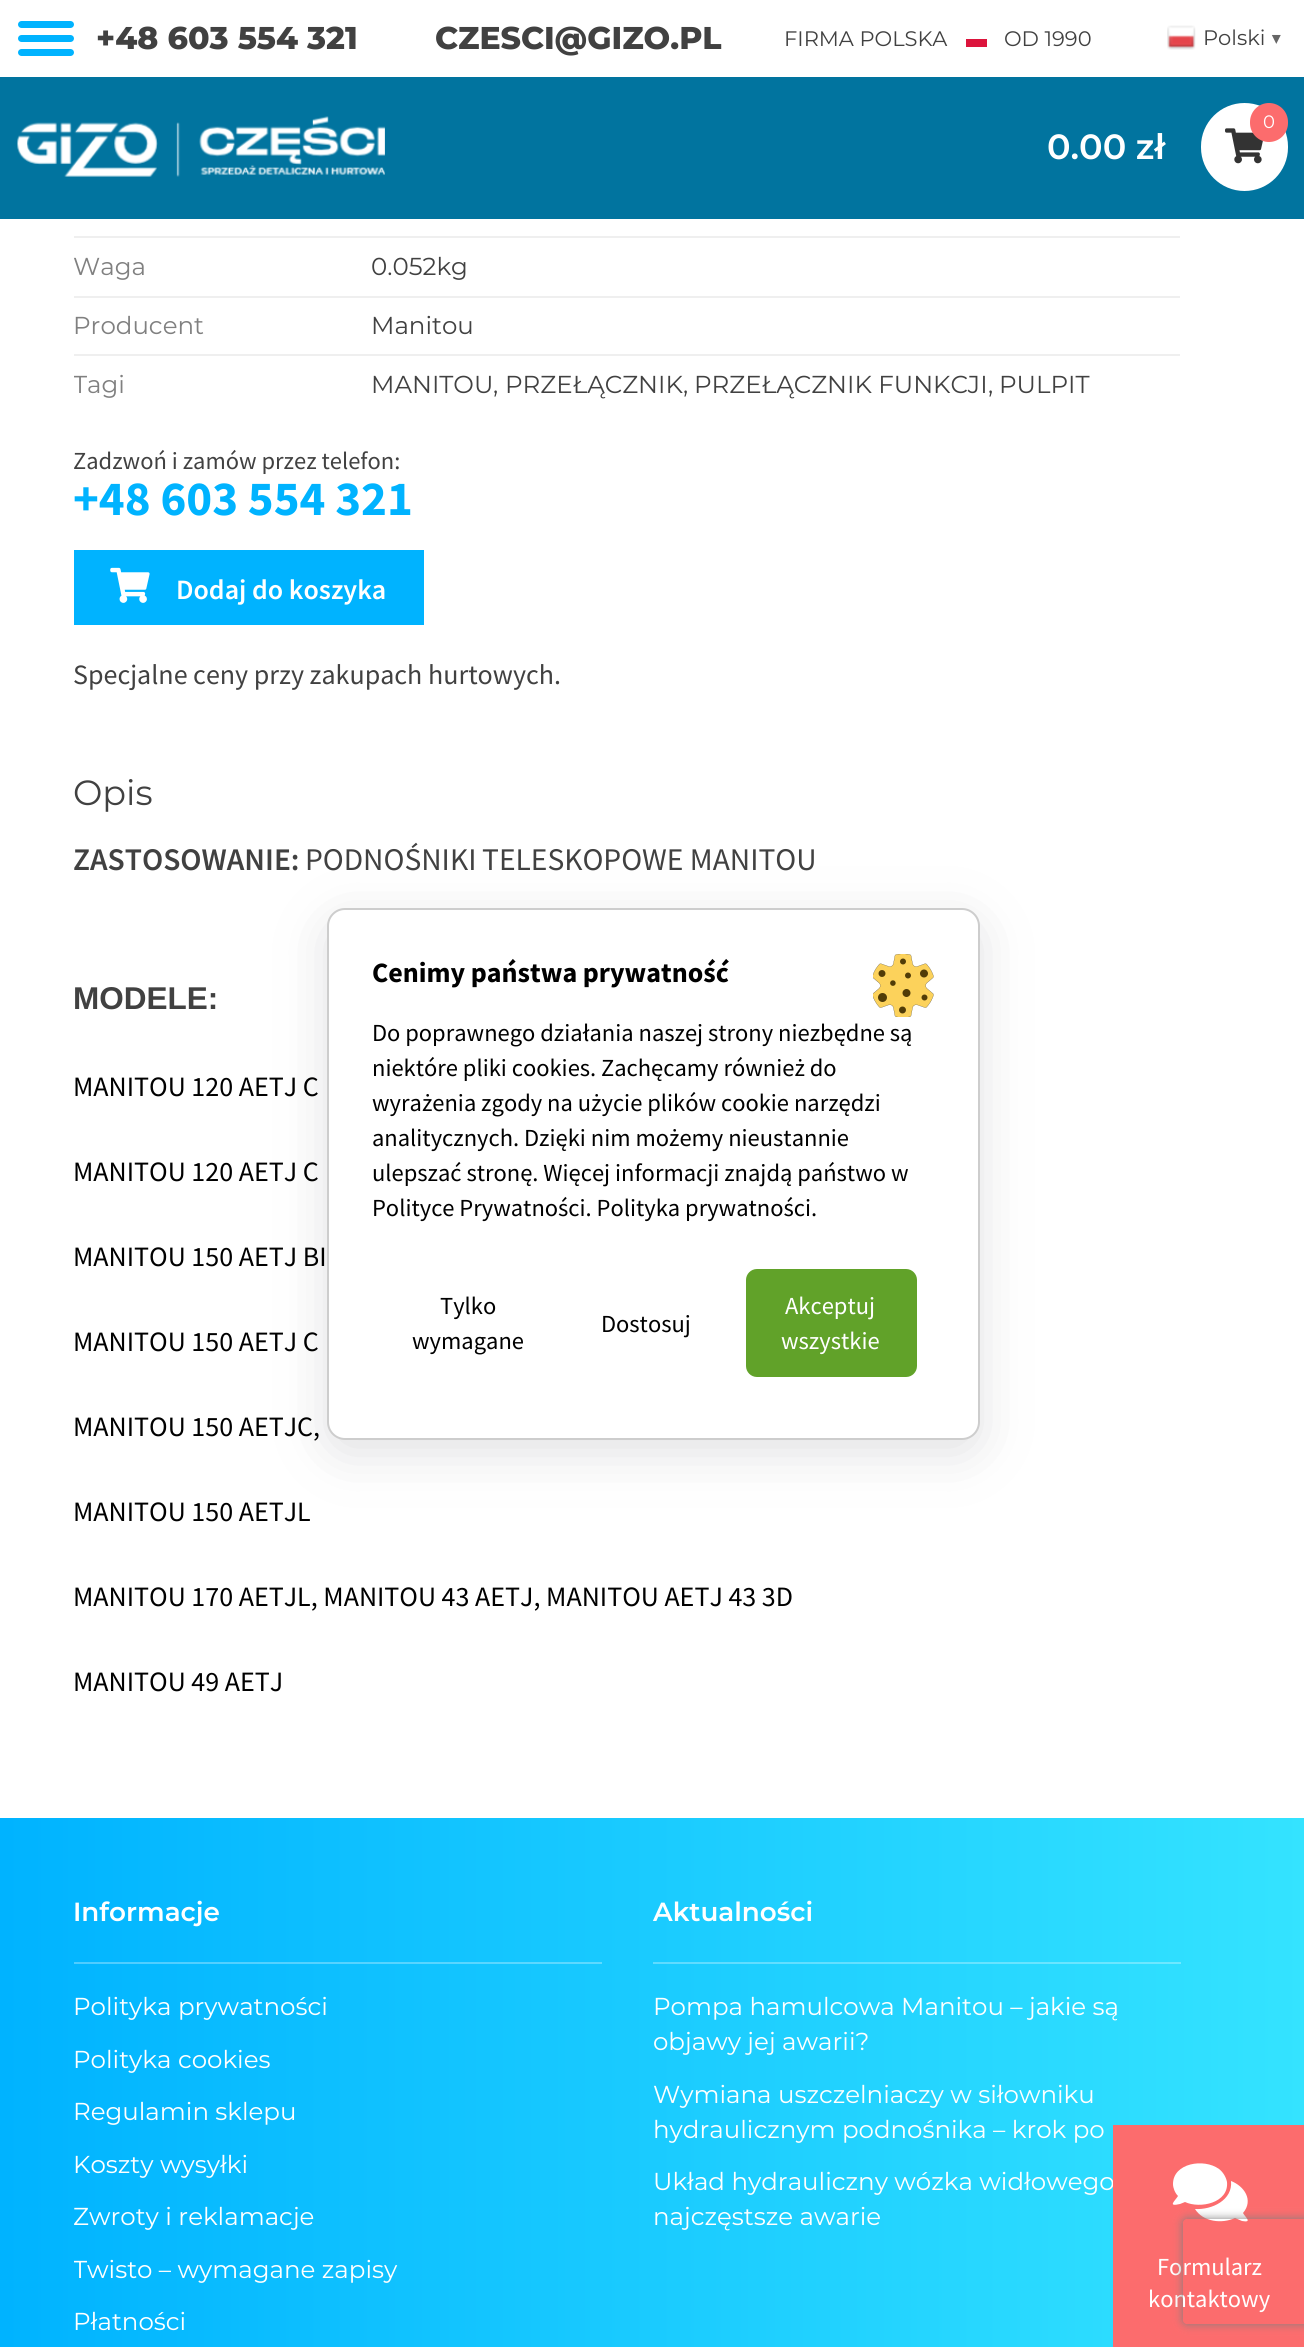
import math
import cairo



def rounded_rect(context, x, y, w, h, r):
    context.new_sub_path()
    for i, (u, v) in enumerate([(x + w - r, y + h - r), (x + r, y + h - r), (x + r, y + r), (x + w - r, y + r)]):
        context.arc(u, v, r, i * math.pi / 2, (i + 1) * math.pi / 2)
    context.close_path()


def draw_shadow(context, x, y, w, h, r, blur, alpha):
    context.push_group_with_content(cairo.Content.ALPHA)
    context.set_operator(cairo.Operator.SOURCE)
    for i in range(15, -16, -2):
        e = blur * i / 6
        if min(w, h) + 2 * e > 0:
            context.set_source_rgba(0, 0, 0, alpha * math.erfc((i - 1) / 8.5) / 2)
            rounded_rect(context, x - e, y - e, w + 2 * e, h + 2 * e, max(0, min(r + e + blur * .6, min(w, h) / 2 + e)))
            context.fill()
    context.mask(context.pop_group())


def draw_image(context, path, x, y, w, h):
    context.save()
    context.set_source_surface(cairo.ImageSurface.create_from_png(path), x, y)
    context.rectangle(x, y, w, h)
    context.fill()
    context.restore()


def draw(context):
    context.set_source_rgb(1, 1, 1)
    context.paint()
    context.set_source_rgb(1 / 255, 116 / 255, 159 / 255)
    context.rectangle(0, 77, 1304, 142)
    context.fill()
    context.set_source_rgb(0, 179 / 255, 1)
    rounded_rect(context, 18, 21, 56, 7, 3.5)
    context.fill()
    rounded_rect(context, 18, 35, 56, 7, 3.5)
    context.fill()
    rounded_rect(context, 18, 49, 56, 7, 3.5)
    context.fill()
    context.set_source_rgb(220 / 255, 20 / 255, 60 / 255)
    context.rectangle(966, 39, 21, 8)
    context.fill()
    draw_image(context, "images/1.png", 1167, 25, 29, 25)
    draw_image(context, "images/2.png", 17, 116, 368, 61)
    context.set_source_rgb(1, 1, 1)
    rounded_rect(context, 1201, 103, 87, 88, 43.5)
    context.fill()
    draw_image(context, "images/3.png", 1225, 128, 38, 36)
    context.set_source_rgb(252 / 255, 108 / 255, 109 / 255)
    rounded_rect(context, 1250, 103, 38, 39, 19)
    context.fill()
    context.set_source_rgb(239 / 255, 239 / 255, 239 / 255)
    context.rectangle(74, 236, 1106, 2)
    context.fill()
    context.rectangle(74, 296, 1106, 2)
    context.fill()
    context.rectangle(74, 354, 1106, 2)
    context.fill()
    context.set_source_rgb(0, 179 / 255, 1)
    context.rectangle(74, 550, 350, 75)
    context.fill()
    draw_image(context, "images/4.png", 110, 567, 40, 36)
    gradient = cairo.LinearGradient(0, 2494, 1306, 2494)
    gradient.add_color_stop_rgba(0, 0, 179 / 255, 1, 1)
    gradient.add_color_stop_rgba(1, 52 / 255, 227 / 255, 1, 1)
    context.set_source(gradient)
    context.rectangle(0, 1818, 1304, 529)
    context.fill()
    gradient = cairo.LinearGradient(0, 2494, 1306, 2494)
    gradient.add_color_stop_rgba(0, 77 / 255, 202 / 255, 1, 1)
    gradient.add_color_stop_rgba(1, 113 / 255, 235 / 255, 1, 1)
    context.set_source(gradient)
    context.rectangle(653, 1962, 528, 2)
    context.fill()
    context.rectangle(74, 1962, 528, 2)
    context.fill()
    context.set_source_rgb(100 / 255, 100 / 255, 111 / 255)
    draw_shadow(context, 327, 921, 653, 532, 18, 25.5, 0.2)
    context.set_source_rgb(1, 1, 1)
    rounded_rect(context, 328, 909, 651, 530, 17)
    context.fill_preserve()
    context.set_source_rgb(205 / 255, 205 / 255, 205 / 255)
    context.stroke()
    draw_image(context, "images/5.png", 873, 954, 61, 63)
    context.set_source_rgb(97 / 255, 162 / 255, 41 / 255)
    rounded_rect(context, 746, 1269, 171, 108, 11)
    context.fill()
    context.select_font_face("Montserrat ExtraBold")
    context.set_font_size(31.5)
    context.set_source_rgb(65 / 255, 65 / 255, 65 / 255)
    context.move_to(96, 49)
    context.show_text("+48 603 554 321")
    context.move_to(435, 49)
    context.show_text("CZESCI@GIZO.PL")
    context.select_font_face("Montserrat")
    context.set_font_size(21)
    context.move_to(784, 46)
    context.show_text("FIRMA POLSKA")
    context.move_to(1004, 46)
    context.show_text("OD 1990")
    context.move_to(1203, 45)
    context.show_text("Polski")
    context.select_font_face("Montserrat", cairo.FontSlant.NORMAL, cairo.FontWeight.BOLD)
    context.set_source_rgb(102 / 255, 102 / 255, 102 / 255)
    context.move_to(1270, 45)
    context.show_text("▼")
    context.select_font_face("Montserrat")
    context.set_font_size(18)
    context.set_source_rgb(1, 1, 1)
    context.move_to(1263, 128)
    context.show_text("0")
    context.select_font_face("Montserrat SemiBold")
    context.set_font_size(35)
    context.move_to(1047, 159)
    context.show_text("0.00 zł")
    context.select_font_face("Montserrat")
    context.set_font_size(24.5)
    context.set_source_rgb(128 / 255, 128 / 255, 128 / 255)
    context.move_to(73, 275)
    context.show_text("Waga")
    context.set_source_rgb(65 / 255, 65 / 255, 65 / 255)
    context.move_to(371, 275)
    context.show_text("0.052kg")
    context.set_source_rgb(128 / 255, 128 / 255, 128 / 255)
    context.move_to(73, 334)
    context.show_text("Producent")
    context.set_source_rgb(65 / 255, 65 / 255, 65 / 255)
    context.move_to(371, 334)
    context.show_text("Manitou")
    context.save()
    context.rectangle(74, 0, 1106, 698)
    context.clip()
    context.set_source_rgb(128 / 255, 128 / 255, 128 / 255)
    context.move_to(73, 393)
    context.show_text("Tagi")
    context.restore()
    context.move_to(371, 393)
    context.show_text("MANITOU")
    context.move_to(493, 393)
    context.show_text(",")
    context.move_to(505, 393)
    context.show_text("PRZEŁĄCZNIK")
    context.move_to(683, 393)
    context.show_text(",")
    context.move_to(694, 393)
    context.show_text("PRZEŁĄCZNIK FUNKCJI")
    context.move_to(988, 393)
    context.show_text(",")
    context.move_to(999, 393)
    context.show_text("PULPIT")
    context.select_font_face("Source Sans Pro")
    context.move_to(73, 469)
    context.show_text("Zadzwoń i zamów przez telefon:")
    context.select_font_face("Source Sans Pro", cairo.FontSlant.NORMAL, cairo.FontWeight.BOLD)
    context.set_font_size(49)
    context.set_source_rgb(0, 179 / 255, 1)
    context.move_to(73, 515)
    context.show_text("+48 603 554 321")
    context.select_font_face("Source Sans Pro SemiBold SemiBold")
    context.set_font_size(28)
    context.set_source_rgb(1, 1, 1)
    context.move_to(176, 599)
    context.show_text("Dodaj do koszyka")
    context.select_font_face("Source Sans Pro")
    context.set_source_rgb(65 / 255, 65 / 255, 65 / 255)
    context.move_to(73, 684)
    context.show_text("Specjalne ceny przy zakupach hurtowych.")
    context.select_font_face("Montserrat")
    context.set_font_size(35)
    context.move_to(73, 805)
    context.show_text("Opis")
    context.select_font_face("Source Sans Pro SemiBold SemiBold")
    context.set_font_size(31.5)
    context.move_to(73, 870)
    context.show_text("ZASTOSOWANIE:")
    context.select_font_face("Source Sans Pro")
    context.move_to(305, 870)
    context.show_text("PODNOŚNIKI")
    context.move_to(482, 870)
    context.show_text("TELESKOPOWE MANITOU")
    context.select_font_face("Liberation Sans", cairo.FontSlant.NORMAL, cairo.FontWeight.BOLD)
    context.move_to(73, 1009)
    context.show_text("MODELE:")
    context.select_font_face("Source Sans Pro")
    context.set_font_size(28)
    context.set_source_rgb(0, 0, 0)
    context.move_to(73, 1096)
    context.show_text("MANITOU 120 AETJ C")
    context.move_to(73, 1181)
    context.show_text("MANITOU 120 AETJ C")
    context.move_to(73, 1266)
    context.show_text("MANITOU 150 AETJ BI")
    context.move_to(73, 1351)
    context.show_text("MANITOU 150 AETJ C")
    context.move_to(73, 1436)
    context.show_text("MANITOU 150 AETJC,")
    context.move_to(73, 1521)
    context.show_text("MANITOU 150 AETJL")
    context.move_to(73, 1606)
    context.show_text("MANITOU 170 AETJL, MANITOU 43 AETJ, MANITOU AETJ 43 3D")
    context.move_to(73, 1691)
    context.show_text("MANITOU 49 AETJ")
    context.select_font_face("Montserrat SemiBold")
    context.set_font_size(26.25)
    context.set_source_rgb(1, 1, 1)
    context.move_to(73, 1921)
    context.show_text("Informacje")
    context.select_font_face("Montserrat")
    context.set_font_size(24.5)
    context.move_to(73, 2015)
    context.show_text("Polityka prywatności")
    context.move_to(73, 2068)
    context.show_text("Polityka cookies")
    context.move_to(73, 2120)
    context.show_text("Regulamin sklepu")
    context.move_to(73, 2173)
    context.show_text("Koszty wysyłki")
    context.move_to(73, 2225)
    context.show_text("Zwroty i reklamacje")
    context.save()
    context.rectangle(74, 1818, 1158, 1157)
    context.clip()
    context.move_to(73, 2278)
    context.show_text("Twisto – wymagane zapisy")
    context.restore()
    context.move_to(73, 2330)
    context.show_text("Płatności")
    context.select_font_face("Montserrat SemiBold")
    context.set_font_size(26.25)
    context.move_to(653, 1921)
    context.show_text("Aktualności")
    context.select_font_face("Montserrat")
    context.set_font_size(24.5)
    context.move_to(653, 2015)
    context.show_text("Pompa hamulcowa Manitou – jakie są")
    context.move_to(653, 2050)
    context.show_text("objawy jej awarii?")
    context.move_to(653, 2103)
    context.show_text("Wymiana uszczelniaczy w siłowniku")
    context.move_to(653, 2138)
    context.show_text("hydraulicznym podnośnika – krok po")
    context.move_to(653, 2190)
    context.show_text("Układ hydrauliczny wózka widłowego")
    context.set_source_rgb(252 / 255, 108 / 255, 109 / 255)
    context.rectangle(1113, 2125, 191, 222)
    context.fill()
    context.select_font_face("Source Sans Pro")
    context.set_source_rgb(1, 1, 1)
    context.move_to(1148, 2307)
    context.show_text("kontaktowy")
    context.move_to(1157, 2275)
    context.show_text("Formularz")
    context.new_path()
    context.move_to(1219, 2169)
    context.curve_to(1223, 2172, 1226, 2177, 1227, 2182)
    context.curve_to(1229, 2203, 1200, 2209, 1185, 2202)
    context.line_to(1180, 2204)
    context.curve_to(1167, 2207, 1175, 2201, 1178, 2196)
    context.curve_to(1175, 2193, 1173, 2188, 1173, 2184)
    context.curve_to(1173, 2163, 1204, 2158, 1219, 2169)
    context.close_path()
    context.move_to(1243, 2213)
    context.curve_to(1245, 2217, 1253, 2223, 1242, 2221)
    context.line_to(1235, 2218)
    context.curve_to(1222, 2224, 1203, 2222, 1195, 2209)
    context.curve_to(1212, 2210, 1233, 2200, 1231, 2181)
    context.curve_to(1244, 2186, 1254, 2200, 1243, 2213)
    context.close_path()
    context.fill()
    context.select_font_face("Montserrat")
    context.move_to(653, 2225)
    context.show_text("najczęstsze awarie")
    context.select_font_face("Source Sans Pro", cairo.FontSlant.NORMAL, cairo.FontWeight.BOLD)
    context.set_font_size(28)
    context.set_source_rgb(0, 0, 0)
    context.move_to(372, 982)
    context.show_text("Cenimy państwa prywatność")
    context.select_font_face("Source Sans Pro")
    context.set_font_size(24.5)
    context.move_to(372, 1041)
    context.show_text("Do poprawnego działania naszej strony niezbędne są")
    context.move_to(372, 1076)
    context.show_text("niektóre pliki cookies. Zachęcamy również do")
    context.move_to(372, 1111)
    context.show_text("wyrażenia zgody na użycie plików cookie narzędzi")
    context.move_to(372, 1146)
    context.show_text("analitycznych. Dzięki nim możemy nieustannie")
    context.move_to(372, 1181)
    context.show_text("ulepszać stronę. Więcej informacji znajdą państwo w")
    context.move_to(372, 1216)
    context.show_text("Polityce Prywatności. Polityka prywatności.")
    context.move_to(440, 1314)
    context.show_text("Tylko")
    context.move_to(412, 1349)
    context.show_text("wymagane")
    context.move_to(601, 1332)
    context.show_text("Dostosuj")
    context.set_source_rgb(1, 1, 1)
    context.move_to(785, 1314)
    context.show_text("Akceptuj")
    context.move_to(781, 1349)
    context.show_text("wszystkie")
    context.save()
    context.set_fill_rule(cairo.FillRule.EVEN_ODD)
    context.new_path()
    context.move_to(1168, 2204)
    context.line_to(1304, 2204)
    context.line_to(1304, 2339)
    context.line_to(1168, 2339)
    context.close_path()
    context.move_to(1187, 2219)
    context.line_to(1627, 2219)
    context.curve_to(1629, 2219, 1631, 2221, 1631, 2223)
    context.line_to(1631, 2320)
    context.curve_to(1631, 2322, 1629, 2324, 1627, 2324)
    context.line_to(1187, 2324)
    context.curve_to(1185, 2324, 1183, 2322, 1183, 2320)
    context.line_to(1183, 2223)
    context.curve_to(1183, 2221, 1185, 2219, 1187, 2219)
    context.close_path()
    context.clip()
    context.set_source_rgb(128 / 255, 128 / 255, 128 / 255)
    draw_shadow(context, 1183, 2219, 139, 105, 4, 4.5, 1)
    context.restore()


surface = cairo.ImageSurface(cairo.Format.RGB24, 1304, 2347)
context = cairo.Context(surface)
options = cairo.FontOptions()
options.set_hint_metrics(cairo.HintMetrics.OFF)
options.set_hint_style(cairo.HintStyle.NONE)
context.set_font_options(options)
context.set_miter_limit(4)
draw(context)
surface.write_to_png("out.png")
